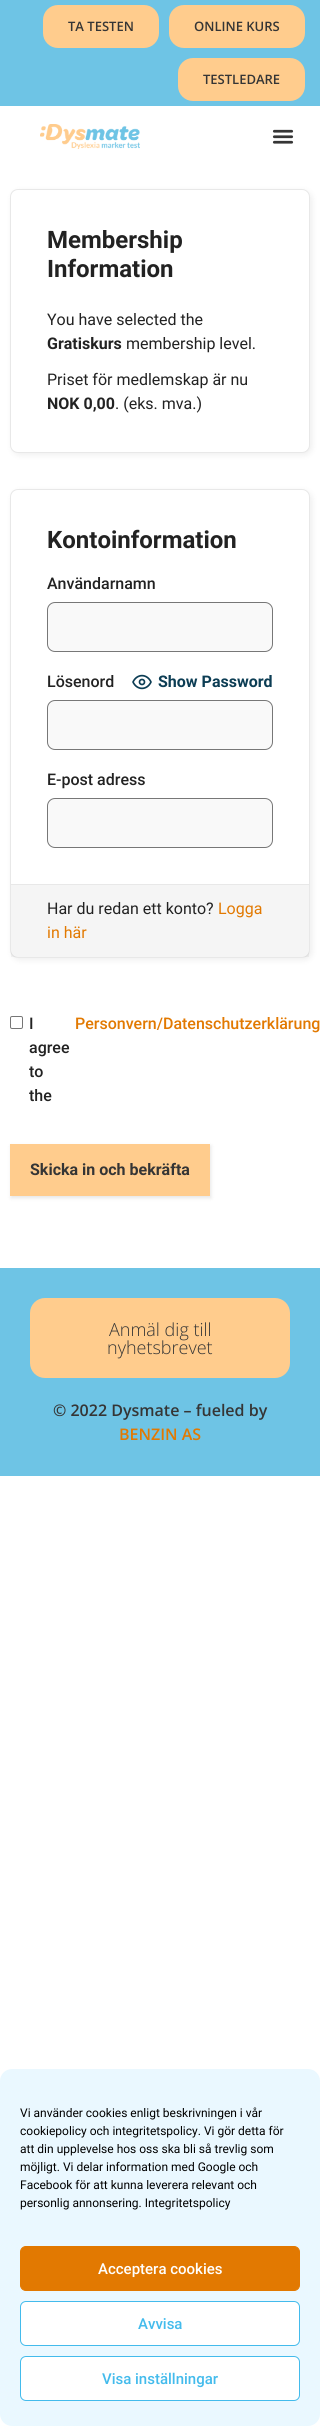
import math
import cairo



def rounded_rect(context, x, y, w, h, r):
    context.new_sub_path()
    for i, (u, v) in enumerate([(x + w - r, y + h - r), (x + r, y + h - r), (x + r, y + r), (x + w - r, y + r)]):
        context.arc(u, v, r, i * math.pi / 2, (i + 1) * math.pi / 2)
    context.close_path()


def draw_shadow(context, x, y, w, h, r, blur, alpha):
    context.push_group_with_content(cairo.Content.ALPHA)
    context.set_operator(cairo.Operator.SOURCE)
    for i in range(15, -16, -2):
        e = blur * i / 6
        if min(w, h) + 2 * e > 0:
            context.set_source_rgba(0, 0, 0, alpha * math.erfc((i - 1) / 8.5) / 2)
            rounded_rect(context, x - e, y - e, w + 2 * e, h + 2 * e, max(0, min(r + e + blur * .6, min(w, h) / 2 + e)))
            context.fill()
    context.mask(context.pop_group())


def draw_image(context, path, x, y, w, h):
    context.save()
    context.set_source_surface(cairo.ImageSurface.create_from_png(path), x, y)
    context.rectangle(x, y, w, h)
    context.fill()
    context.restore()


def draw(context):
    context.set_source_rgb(1, 1, 1)
    context.paint()
    context.set_source_rgb(110 / 255, 196 / 255, 229 / 255)
    context.rectangle(0, 0, 320, 106)
    context.fill()
    context.set_source_rgb(1, 204 / 255, 141 / 255)
    rounded_rect(context, 45.5, 7.5, 111, 38, 12.5)
    context.fill_preserve()
    context.set_line_width(5)
    context.stroke()
    rounded_rect(context, 171.5, 7.5, 131, 38, 12.5)
    context.fill_preserve()
    context.stroke()
    rounded_rect(context, 180.5, 60.5, 122, 38, 12.5)
    context.fill_preserve()
    context.stroke()
    draw_image(context, "images/1.png", 40, 124, 100, 25)
    draw_image(context, "images/2.png", 272, 129, 22, 15)
    context.set_source_rgb(0, 0, 0)
    draw_shadow(context, 12, 191, 300, 264, 8, 3.5, 0.07)
    context.set_source_rgb(1, 1, 1)
    rounded_rect(context, 10.5, 189.5, 299, 263, 7.5)
    context.fill_preserve()
    context.set_source_rgb(232 / 255, 232 / 255, 232 / 255)
    context.set_line_width(1)
    context.stroke()
    context.set_source_rgb(0, 0, 0)
    draw_shadow(context, 12, 491, 300, 469, 8, 3.5, 0.07)
    context.set_source_rgb(1, 1, 1)
    rounded_rect(context, 10.5, 489.5, 299, 468, 7.5)
    context.fill_preserve()
    context.set_source_rgb(232 / 255, 232 / 255, 232 / 255)
    context.stroke()
    context.set_source_rgb(249 / 255, 249 / 255, 249 / 255)
    rounded_rect(context, 47.5, 602.5, 225, 49, 7.5)
    context.fill_preserve()
    context.set_source_rgb(119 / 255, 119 / 255, 119 / 255)
    context.stroke()
    context.new_path()
    context.move_to(133, 682)
    context.curve_to(137, 673.5, 147, 673.5, 151, 682)
    context.curve_to(147, 690.5, 137, 690.5, 133, 682)
    context.close_path()
    context.set_source_rgb(12 / 255, 61 / 255, 84 / 255)
    context.set_line_width(1.7)
    context.set_line_cap(cairo.LineCap.ROUND)
    context.set_line_join(cairo.LineJoin.ROUND)
    context.stroke()
    context.arc(142, 682, 2.5, 0, 2 * math.pi)
    context.set_line_cap(cairo.LineCap.BUTT)
    context.set_line_join(cairo.LineJoin.MITER)
    context.stroke()
    context.set_source_rgb(249 / 255, 249 / 255, 249 / 255)
    rounded_rect(context, 47.5, 700.5, 225, 49, 7.5)
    context.fill_preserve()
    context.set_source_rgb(119 / 255, 119 / 255, 119 / 255)
    context.set_line_width(1)
    context.stroke()
    context.set_source_rgb(249 / 255, 249 / 255, 249 / 255)
    rounded_rect(context, 47.5, 798.5, 225, 49, 7.5)
    context.fill_preserve()
    context.set_source_rgb(119 / 255, 119 / 255, 119 / 255)
    context.stroke()
    context.set_source_rgba(0, 0, 0, 0.04)
    context.rectangle(11, 885, 298, 72)
    context.fill()
    context.set_source_rgb(232 / 255, 232 / 255, 232 / 255)
    context.rectangle(11, 884, 298, 1)
    context.fill()
    rounded_rect(context, 10.5, 1016.5, 12, 12, 1.5)
    context.set_source_rgb(118 / 255, 118 / 255, 118 / 255)
    context.stroke()
    context.set_source_rgb(0, 0, 0)
    draw_shadow(context, 11, 1146, 200, 52, 0, 2, 0.1)
    context.set_source_rgb(1, 204 / 255, 141 / 255)
    context.rectangle(10, 1144, 200, 52)
    context.fill()
    context.set_source_rgb(110 / 255, 196 / 255, 229 / 255)
    context.rectangle(0, 1268, 320, 208)
    context.fill()
    context.set_source_rgb(1, 204 / 255, 141 / 255)
    rounded_rect(context, 31, 1299, 258, 78, 14)
    context.fill_preserve()
    context.set_line_width(2)
    context.stroke()
    context.set_source_rgb(234 / 255, 248 / 255, 1)
    rounded_rect(context, 0, 2069, 320, 357, 12)
    context.fill()
    context.set_source_rgb(226 / 255, 121 / 255, 1 / 255)
    rounded_rect(context, 20.5, 2246.5, 279, 44, 5.5)
    context.fill_preserve()
    context.set_line_width(1)
    context.stroke()
    context.set_source_rgb(1, 1, 1)
    rounded_rect(context, 20.5, 2301.5, 279, 44, 5.5)
    context.fill_preserve()
    context.set_source_rgb(67 / 255, 187 / 255, 236 / 255)
    context.stroke()
    context.set_source_rgb(1, 1, 1)
    rounded_rect(context, 20.5, 2356.5, 279, 44, 5.5)
    context.fill_preserve()
    context.set_source_rgb(67 / 255, 187 / 255, 236 / 255)
    context.stroke()
    context.select_font_face("Open Sans SemiBold")
    context.set_font_size(13)
    context.set_source_rgb(53 / 255, 53 / 255, 53 / 255)
    context.move_to(68, 31)
    context.show_text("TA TESTEN")
    context.move_to(194, 31)
    context.show_text("ONLINE KURS")
    context.move_to(203, 84)
    context.show_text("TESTLEDARE")
    context.select_font_face("Roboto", cairo.FontSlant.NORMAL, cairo.FontWeight.BOLD)
    context.set_font_size(24)
    context.set_source_rgb(34 / 255, 34 / 255, 34 / 255)
    context.move_to(47, 248)
    context.show_text("Membership")
    context.move_to(47, 277)
    context.show_text("Information")
    context.select_font_face("Roboto")
    context.set_font_size(16)
    context.move_to(47, 325)
    context.show_text("You have selected the")
    context.select_font_face("Roboto", cairo.FontSlant.NORMAL, cairo.FontWeight.BOLD)
    context.move_to(47, 349)
    context.show_text("Gratiskurs")
    context.select_font_face("Roboto")
    context.move_to(126, 349)
    context.show_text("membership level.")
    context.move_to(47, 385)
    context.show_text("Priset för medlemskap är nu")
    context.select_font_face("Roboto", cairo.FontSlant.NORMAL, cairo.FontWeight.BOLD)
    context.move_to(47, 409)
    context.show_text("NOK 0,00")
    context.select_font_face("Roboto")
    context.move_to(115, 409)
    context.show_text(". (eks. mva.)")
    context.select_font_face("Roboto", cairo.FontSlant.NORMAL, cairo.FontWeight.BOLD)
    context.set_font_size(24)
    context.move_to(47, 548)
    context.show_text("Kontoinformation")
    context.select_font_face("Roboto Medium")
    context.set_font_size(16)
    context.move_to(47, 589)
    context.show_text("Användarnamn")
    context.move_to(47, 687)
    context.show_text("Lösenord")
    context.select_font_face("Roboto", cairo.FontSlant.NORMAL, cairo.FontWeight.BOLD)
    context.set_source_rgb(12 / 255, 61 / 255, 84 / 255)
    context.move_to(158, 687)
    context.show_text("Show Password")
    context.select_font_face("Roboto Medium")
    context.set_source_rgb(34 / 255, 34 / 255, 34 / 255)
    context.move_to(47, 785)
    context.show_text("E-post adress")
    context.select_font_face("Roboto")
    context.move_to(47, 914)
    context.show_text("Har du redan ett konto?")
    context.set_source_rgb(226 / 255, 121 / 255, 1 / 255)
    context.move_to(218, 914)
    context.show_text("Logga")
    context.move_to(47, 938)
    context.show_text("in här")
    context.select_font_face("Roboto Medium")
    context.set_source_rgb(34 / 255, 34 / 255, 34 / 255)
    context.move_to(29, 1029)
    context.show_text("I")
    context.set_source_rgb(226 / 255, 121 / 255, 1 / 255)
    context.move_to(75, 1029)
    context.show_text("Personvern/Datenschutzerklärung")
    context.set_source_rgb(34 / 255, 34 / 255, 34 / 255)
    context.move_to(29, 1053)
    context.show_text("agree")
    context.move_to(29, 1077)
    context.show_text("to")
    context.move_to(29, 1101)
    context.show_text("the")
    context.select_font_face("Roboto", cairo.FontSlant.NORMAL, cairo.FontWeight.BOLD)
    context.set_source_rgb(53 / 255, 53 / 255, 53 / 255)
    context.move_to(30, 1175)
    context.show_text("Skicka in och bekräfta")
    context.select_font_face("Open Sans Light")
    context.set_font_size(18)
    context.move_to(109, 1336)
    context.show_text("Anmäl dig till")
    context.move_to(107, 1354)
    context.show_text("nyhetsbrevet")
    context.select_font_face("Open Sans SemiBold")
    context.set_font_size(16)
    context.move_to(53, 1416)
    context.show_text("© 2022 Dysmate – fueled by")
    context.set_source_rgb(226 / 255, 121 / 255, 1 / 255)
    context.move_to(119, 1440)
    context.show_text("BENZIN AS")
    context.select_font_face("Roboto")
    context.set_font_size(12)
    context.set_source_rgb(0, 0, 0)
    context.move_to(20, 2117)
    context.show_text("Vi använder cookies enligt beskrivningen i vår")
    context.move_to(20, 2135)
    context.show_text("cookiepolicy och integritetspolicy. Vi gör detta för")
    context.move_to(20, 2153)
    context.show_text("att din upplevelse hos oss ska bli så trevlig som")
    context.move_to(20, 2171)
    context.show_text("möjligt. Vi delar information med Google och")
    context.move_to(20, 2189)
    context.show_text("Facebook för att kunna leverera relevant och")
    context.move_to(20, 2207)
    context.show_text("personlig annonsering. Integritetspolicy")
    context.select_font_face("Roboto Medium")
    context.set_font_size(15)
    context.set_source_rgb(1, 1, 1)
    context.move_to(98, 2274)
    context.show_text("Acceptera cookies")
    context.set_source_rgb(67 / 255, 187 / 255, 236 / 255)
    context.move_to(138, 2329)
    context.show_text("Avvisa")
    context.move_to(102, 2384)
    context.show_text("Visa inställningar")


surface = cairo.ImageSurface(cairo.Format.RGB24, 320, 2426)
context = cairo.Context(surface)
options = cairo.FontOptions()
options.set_hint_metrics(cairo.HintMetrics.OFF)
options.set_hint_style(cairo.HintStyle.NONE)
context.set_font_options(options)
context.set_miter_limit(4)
draw(context)
surface.write_to_png("out.png")
